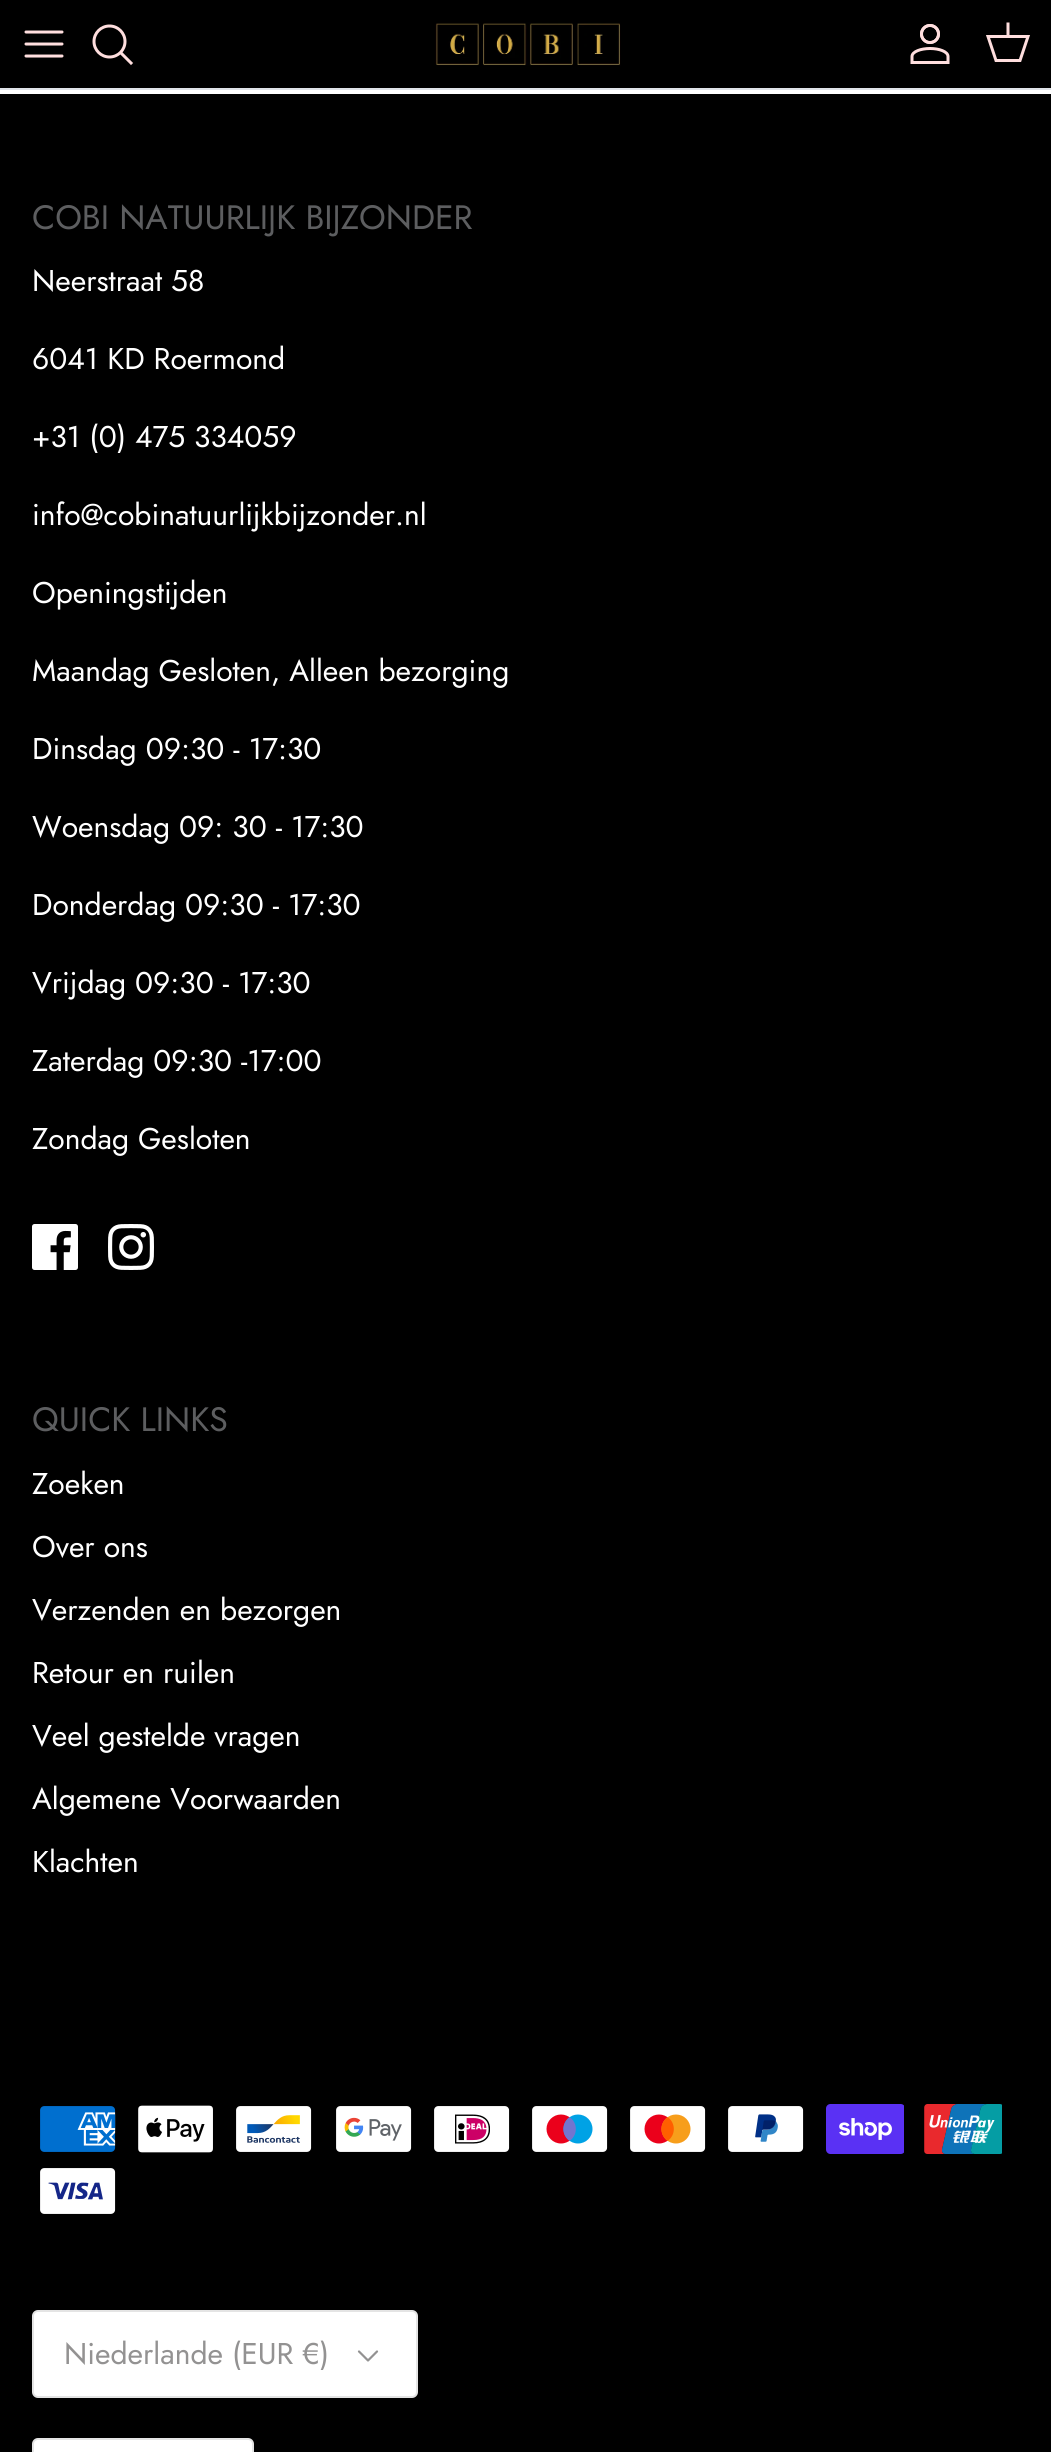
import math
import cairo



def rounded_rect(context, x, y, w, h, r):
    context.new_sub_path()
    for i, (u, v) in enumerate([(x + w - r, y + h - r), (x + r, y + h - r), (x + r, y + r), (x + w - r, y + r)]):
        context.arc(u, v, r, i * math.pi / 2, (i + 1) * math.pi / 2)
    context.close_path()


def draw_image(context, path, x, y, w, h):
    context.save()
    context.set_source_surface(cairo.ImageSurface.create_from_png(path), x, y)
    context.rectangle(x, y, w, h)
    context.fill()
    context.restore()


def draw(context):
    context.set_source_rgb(1, 1, 1)
    context.paint()
    context.set_source_rgb(0, 0, 0)
    context.rectangle(0, 0, 1051, 88)
    context.fill()
    context.set_source_rgb(223 / 255, 227 / 255, 232 / 255)
    context.rectangle(0, 88, 1051, 2)
    context.fill()
    context.new_path()
    context.move_to(26, 44)
    context.line_to(62, 44)
    context.move_to(26, 32)
    context.line_to(62, 32)
    context.move_to(26, 56)
    context.line_to(62, 56)
    context.set_source_rgb(1, 222 / 255, 222 / 255)
    context.set_line_width(3)
    context.set_line_cap(cairo.LineCap.ROUND)
    context.set_line_join(cairo.LineJoin.ROUND)
    context.stroke()
    context.arc(109.5, 41.5, 15.5, 0, 2 * math.pi)
    context.set_line_cap(cairo.LineCap.BUTT)
    context.set_line_join(cairo.LineJoin.MITER)
    context.stroke()
    context.new_path()
    context.move_to(122, 54)
    context.line_to(131, 63)
    context.set_line_cap(cairo.LineCap.SQUARE)
    context.stroke()
    draw_image(context, "images/1.png", 435, 22, 186, 44)
    draw_image(context, "images/2.png", 910, 24, 40, 40)
    context.new_path()
    context.move_to(988, 36.5)
    context.line_to(1028, 36.5)
    context.line_to(1020, 60.5)
    context.line_to(996, 60.5)
    context.close_path()
    context.set_line_cap(cairo.LineCap.BUTT)
    context.stroke()
    context.new_path()
    context.move_to(1008, 36)
    context.line_to(1008, 24)
    context.set_line_cap(cairo.LineCap.SQUARE)
    context.stroke()
    context.set_source_rgb(0, 0, 0)
    context.rectangle(0, 94, 1051, 2358)
    context.fill()
    draw_image(context, "images/3.png", 32, 1224, 46, 46)
    draw_image(context, "images/4.png", 108, 1224, 46, 46)
    draw_image(context, "images/5.png", 40, 2106, 76, 46)
    draw_image(context, "images/6.png", 138, 2105, 75, 48)
    draw_image(context, "images/7.png", 236, 2106, 76, 46)
    draw_image(context, "images/8.png", 336, 2106, 76, 46)
    draw_image(context, "images/9.png", 434, 2106, 76, 46)
    draw_image(context, "images/10.png", 532, 2106, 76, 46)
    draw_image(context, "images/11.png", 630, 2106, 76, 46)
    draw_image(context, "images/12.png", 728, 2106, 76, 46)
    draw_image(context, "images/13.png", 826, 2104, 78, 50)
    draw_image(context, "images/14.png", 924, 2104, 78, 50)
    draw_image(context, "images/15.png", 40, 2168, 76, 46)
    context.set_source_rgb(1, 1, 1)
    rounded_rect(context, 33, 2311, 384, 86, 5)
    context.fill_preserve()
    context.set_source_rgb(228 / 255, 228 / 255, 228 / 255)
    context.set_line_width(2)
    context.set_line_cap(cairo.LineCap.BUTT)
    context.stroke()
    context.new_path()
    context.move_to(359, 2351.5)
    context.line_to(368, 2360.5)
    context.line_to(377, 2351.5)
    context.set_source_rgb(147 / 255, 146 / 255, 146 / 255)
    context.set_line_width(2.2)
    context.set_line_cap(cairo.LineCap.ROUND)
    context.set_line_join(cairo.LineJoin.ROUND)
    context.stroke()
    context.set_source_rgb(1, 1, 1)
    rounded_rect(context, 33, 2439, 220, 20, 5)
    context.fill_preserve()
    context.set_source_rgb(228 / 255, 228 / 255, 228 / 255)
    context.set_line_width(2)
    context.set_line_cap(cairo.LineCap.BUTT)
    context.set_line_join(cairo.LineJoin.MITER)
    context.stroke()
    context.select_font_face("Jost")
    context.set_font_size(33.8)
    context.set_source_rgb(93 / 255, 94 / 255, 96 / 255)
    context.move_to(32, 229)
    context.show_text("COBI NATUURLIJK BIJZONDER")
    context.set_font_size(30)
    context.set_source_rgb(1, 1, 1)
    context.move_to(32, 291)
    context.show_text("Neerstraat 58")
    context.move_to(32, 369)
    context.show_text("6041 KD Roermond")
    context.move_to(32, 447)
    context.show_text("+31 (0) 475 334059")
    context.move_to(32, 525)
    context.show_text("info@cobinatuurlijkbijzonder.nl")
    context.move_to(32, 603)
    context.show_text("Openingstijden")
    context.move_to(32, 681)
    context.show_text("Maandag Gesloten, Alleen bezorging")
    context.move_to(32, 759)
    context.show_text("Dinsdag 09:30 - 17:30")
    context.move_to(32, 837)
    context.show_text("Woensdag 09: 30 - 17:30")
    context.move_to(32, 915)
    context.show_text("Donderdag 09:30 - 17:30")
    context.move_to(32, 993)
    context.show_text("Vrijdag 09:30 - 17:30")
    context.move_to(32, 1071)
    context.show_text("Zaterdag 09:30 -17:00")
    context.move_to(32, 1149)
    context.show_text("Zondag Gesloten")
    context.set_font_size(33.8)
    context.set_source_rgb(93 / 255, 94 / 255, 96 / 255)
    context.move_to(32, 1431)
    context.show_text("QUICK LINKS")
    context.set_font_size(30)
    context.set_source_rgb(1, 1, 1)
    context.move_to(32, 1494)
    context.show_text("Zoeken")
    context.move_to(32, 1557)
    context.show_text("Over ons")
    context.move_to(32, 1620)
    context.show_text("Verzenden en bezorgen")
    context.move_to(32, 1683)
    context.show_text("Retour en ruilen")
    context.move_to(32, 1746)
    context.show_text("Veel gestelde vragen")
    context.move_to(32, 1809)
    context.show_text("Algemene Voorwaarden")
    context.move_to(32, 1872)
    context.show_text("Klachten")
    context.set_source_rgb(147 / 255, 146 / 255, 146 / 255)
    context.move_to(64, 2364)
    context.show_text("Niederlande (EUR €)")


surface = cairo.ImageSurface(cairo.Format.RGB24, 1051, 2452)
context = cairo.Context(surface)
options = cairo.FontOptions()
options.set_hint_metrics(cairo.HintMetrics.OFF)
options.set_hint_style(cairo.HintStyle.NONE)
context.set_font_options(options)
context.set_miter_limit(4)
draw(context)
surface.write_to_png("out.png")
